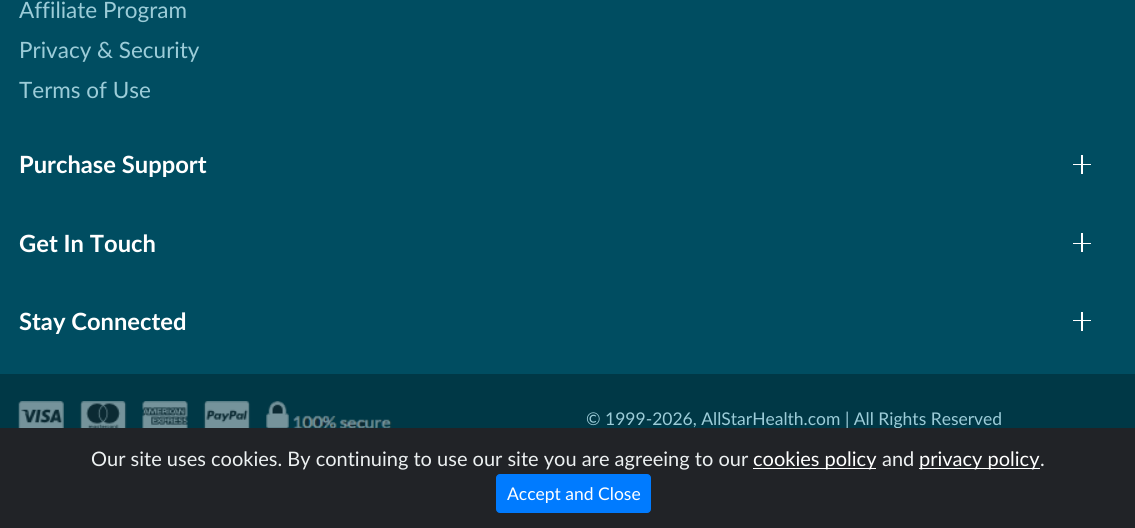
import math
import cairo



def rounded_rect(context, x, y, w, h, r):
    context.new_sub_path()
    for i, (u, v) in enumerate([(x + w - r, y + h - r), (x + r, y + h - r), (x + r, y + r), (x + w - r, y + r)]):
        context.arc(u, v, r, i * math.pi / 2, (i + 1) * math.pi / 2)
    context.close_path()


def draw_image(context, path, x, y, w, h):
    context.save()
    context.set_source_surface(cairo.ImageSurface.create_from_png(path), x, y)
    context.rectangle(x, y, w, h)
    context.fill()
    context.restore()


def draw(context):
    context.set_source_rgb(0, 77 / 255, 97 / 255)
    context.paint()
    context.set_source_rgb(1, 1, 1)
    context.rectangle(1073, 164, 18, 1)
    context.fill()
    context.rectangle(1081, 155, 2, 19)
    context.fill()
    context.rectangle(1073, 243, 18, 1)
    context.fill()
    context.rectangle(1081, 233, 2, 19)
    context.fill()
    context.rectangle(1073, 320, 18, 1)
    context.fill()
    context.rectangle(1081, 312, 2, 19)
    context.fill()
    context.set_source_rgb(0, 56 / 255, 70 / 255)
    context.rectangle(0, 374, 1135, 54)
    context.fill()
    draw_image(context, "images/1.png", 18, 401, 374, 27)
    context.select_font_face("Lato")
    context.set_font_size(22.5)
    context.set_source_rgb(156 / 255, 204 / 255, 216 / 255)
    context.move_to(19, 18)
    context.show_text("Affiliate Program")
    context.move_to(19, 58)
    context.show_text("Privacy & Security")
    context.move_to(19, 98)
    context.show_text("Terms of Use")
    context.select_font_face("Lato", cairo.FontSlant.NORMAL, cairo.FontWeight.BOLD)
    context.set_font_size(23.75)
    context.set_source_rgb(1, 1, 1)
    context.move_to(19, 173)
    context.show_text("Purchase Support")
    context.move_to(19, 252)
    context.show_text("Get In Touch")
    context.move_to(19, 330)
    context.show_text("Stay Connected")
    context.select_font_face("Lato")
    context.set_font_size(17.5)
    context.set_source_rgb(156 / 255, 204 / 255, 216 / 255)
    context.move_to(586, 425)
    context.show_text("© 1999-2026, AllStarHealth.com | All Rights Reserved")
    context.set_source_rgb(33 / 255, 35 / 255, 39 / 255)
    context.rectangle(0, 428, 1135, 100)
    context.fill()
    context.set_font_size(20)
    context.set_source_rgb(236 / 255, 240 / 255, 241 / 255)
    context.move_to(91, 466)
    context.show_text("Our site uses cookies. By continuing to use our site you are agreeing to our")
    context.set_source_rgb(1, 1, 1)
    context.rectangle(753, 468, 123, 1)
    context.fill()
    context.move_to(753, 466)
    context.show_text("cookies policy")
    context.set_source_rgb(236 / 255, 240 / 255, 241 / 255)
    context.move_to(882, 466)
    context.show_text("and")
    context.set_source_rgb(1, 1, 1)
    context.rectangle(919, 468, 121, 1)
    context.fill()
    context.move_to(919, 466)
    context.show_text("privacy policy")
    context.set_source_rgb(236 / 255, 240 / 255, 241 / 255)
    context.move_to(1040, 466)
    context.show_text(".")
    context.set_source_rgb(0, 123 / 255, 1)
    rounded_rect(context, 496.5, 474.5, 154, 38, 3.5)
    context.fill_preserve()
    context.set_line_width(1)
    context.stroke()
    context.set_font_size(17.5)
    context.set_source_rgb(1, 1, 1)
    context.move_to(507, 500)
    context.show_text("Accept and Close")


surface = cairo.ImageSurface(cairo.Format.RGB24, 1135, 528)
context = cairo.Context(surface)
options = cairo.FontOptions()
options.set_hint_metrics(cairo.HintMetrics.OFF)
options.set_hint_style(cairo.HintStyle.NONE)
context.set_font_options(options)
context.set_miter_limit(4)
draw(context)
surface.write_to_png("out.png")
